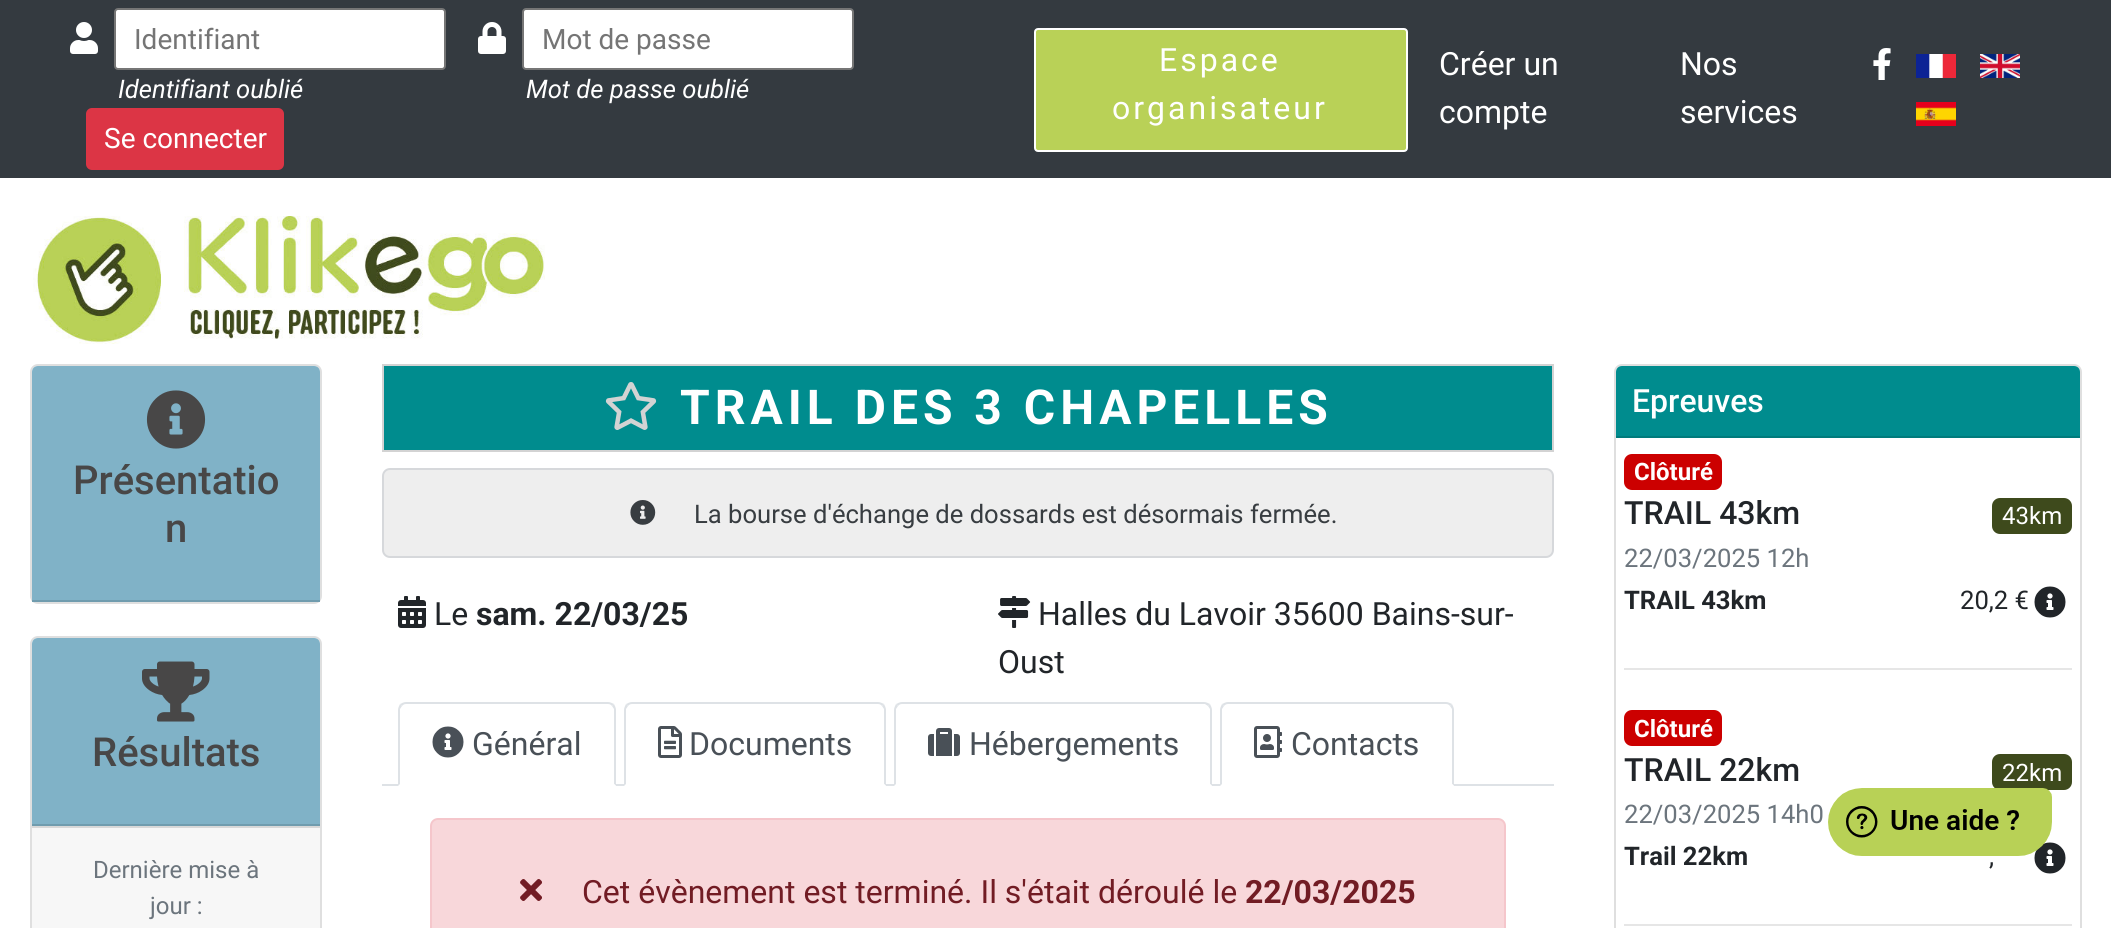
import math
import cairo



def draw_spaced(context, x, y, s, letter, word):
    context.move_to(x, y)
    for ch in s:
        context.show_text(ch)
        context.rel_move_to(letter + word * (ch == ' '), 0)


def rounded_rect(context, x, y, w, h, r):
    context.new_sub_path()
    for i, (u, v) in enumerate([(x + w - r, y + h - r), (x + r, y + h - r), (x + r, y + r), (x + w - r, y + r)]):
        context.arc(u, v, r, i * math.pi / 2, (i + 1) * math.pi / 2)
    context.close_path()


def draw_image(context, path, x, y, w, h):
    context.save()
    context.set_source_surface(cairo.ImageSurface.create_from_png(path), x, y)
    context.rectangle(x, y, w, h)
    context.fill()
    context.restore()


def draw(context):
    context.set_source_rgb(1, 1, 1)
    context.paint()
    context.set_source_rgb(52 / 255, 58 / 255, 64 / 255)
    context.rectangle(0, 0, 2111, 178)
    context.fill()
    draw_image(context, "images/1.png", 70, 22, 28, 32)
    context.set_source_rgb(1, 1, 1)
    rounded_rect(context, 115, 9, 330, 60, 3)
    context.fill_preserve()
    context.set_source_rgb(118 / 255, 118 / 255, 118 / 255)
    context.stroke()
    draw_image(context, "images/2.png", 478, 22, 28, 32)
    context.set_source_rgb(1, 1, 1)
    rounded_rect(context, 523, 9, 330, 60, 3)
    context.fill_preserve()
    context.set_source_rgb(118 / 255, 118 / 255, 118 / 255)
    context.stroke()
    context.set_source_rgb(220 / 255, 53 / 255, 69 / 255)
    rounded_rect(context, 87, 109, 196, 60, 5)
    context.fill_preserve()
    context.stroke()
    context.set_source_rgb(185 / 255, 209 / 255, 87 / 255)
    rounded_rect(context, 1035, 29, 372, 122, 3)
    context.fill_preserve()
    context.set_source_rgb(1, 1, 1)
    context.stroke()
    draw_image(context, "images/3.png", 1873, 48, 18, 32)
    draw_image(context, "images/4.png", 1916, 54, 40, 24)
    draw_image(context, "images/5.png", 1980, 54, 40, 24)
    draw_image(context, "images/6.png", 1916, 102, 40, 24)
    draw_image(context, "images/7.png", 33, 216, 512, 128)
    rounded_rect(context, 31, 365, 290, 238, 7)
    context.set_source_rgb(223 / 255, 223 / 255, 223 / 255)
    context.stroke()
    context.set_source_rgb(128 / 255, 178 / 255, 199 / 255)
    context.new_path()
    context.move_to(38, 366)
    context.line_to(314, 366)
    context.curve_to(317.5, 366, 320, 368.5, 320, 372)
    context.line_to(320, 602)
    context.line_to(32, 602)
    context.line_to(32, 372)
    context.curve_to(32, 368.5, 34.5, 366, 38, 366)
    context.close_path()
    context.fill()
    context.set_source_rgb(112 / 255, 156 / 255, 174 / 255)
    context.rectangle(32, 600, 288, 2)
    context.fill()
    draw_image(context, "images/8.png", 146, 390, 60, 59)
    rounded_rect(context, 31, 637, 290, 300, 7)
    context.set_source_rgb(223 / 255, 223 / 255, 223 / 255)
    context.stroke()
    context.set_source_rgb(128 / 255, 178 / 255, 199 / 255)
    context.new_path()
    context.move_to(38, 638)
    context.line_to(314, 638)
    context.curve_to(317.5, 638, 320, 640.5, 320, 644)
    context.line_to(320, 826)
    context.line_to(32, 826)
    context.line_to(32, 644)
    context.curve_to(32, 640.5, 34.5, 638, 38, 638)
    context.close_path()
    context.fill()
    context.set_source_rgb(112 / 255, 156 / 255, 174 / 255)
    context.rectangle(32, 824, 288, 2)
    context.fill()
    draw_image(context, "images/9.png", 142, 661, 68, 61)
    context.set_source_rgb(247 / 255, 247 / 255, 247 / 255)
    context.rectangle(32, 828, 288, 100)
    context.fill()
    context.set_source_rgb(216 / 255, 216 / 255, 216 / 255)
    context.rectangle(32, 826, 288, 2)
    context.fill()
    context.set_source_rgb(0, 140 / 255, 142 / 255)
    context.rectangle(383, 365, 1170, 86)
    context.fill_preserve()
    context.set_source_rgb(211 / 255, 211 / 255, 211 / 255)
    context.stroke()
    draw_image(context, "images/10.png", 605, 382, 52, 48)
    context.set_source_rgb(238 / 255, 238 / 255, 238 / 255)
    rounded_rect(context, 383, 469, 1170, 88, 7)
    context.fill_preserve()
    context.set_source_rgb(214 / 255, 216 / 255, 219 / 255)
    context.stroke()
    draw_image(context, "images/11.png", 630, 500, 26, 25)
    draw_image(context, "images/12.png", 398, 596, 28, 32)
    draw_image(context, "images/13.png", 998, 596, 33, 32)
    context.set_source_rgb(222 / 255, 226 / 255, 230 / 255)
    context.rectangle(382, 784, 1172, 2)
    context.fill()
    context.set_source_rgb(1, 1, 1)
    context.new_path()
    context.move_to(406, 702)
    context.line_to(608, 702)
    context.curve_to(612.5, 702, 616, 705.5, 616, 710)
    context.line_to(616, 786)
    context.line_to(398, 786)
    context.line_to(398, 710)
    context.curve_to(398, 705.5, 401.5, 702, 406, 702)
    context.close_path()
    context.fill()
    context.set_source_rgb(222 / 255, 226 / 255, 230 / 255)
    context.new_path()
    context.move_to(406, 702)
    context.curve_to(404, 702, 402, 703, 400, 704)
    context.line_to(402, 706)
    context.curve_to(403, 705, 404, 704, 406, 704)
    context.line_to(608, 704)
    context.curve_to(610, 704, 611, 705, 612, 706)
    context.line_to(614, 704)
    context.curve_to(612, 703, 610, 702, 608, 702)
    context.close_path()
    context.fill()
    context.new_path()
    context.move_to(616, 786)
    context.line_to(616, 710)
    context.curve_to(616, 708, 615, 706, 614, 704)
    context.line_to(612, 706)
    context.line_to(614, 709)
    context.line_to(614, 784)
    context.close_path()
    context.fill()
    context.set_source_rgb(1, 1, 1)
    context.new_path()
    context.move_to(616, 786)
    context.line_to(614, 784)
    context.line_to(400, 784)
    context.line_to(398, 786)
    context.close_path()
    context.fill()
    context.set_source_rgb(222 / 255, 226 / 255, 230 / 255)
    context.new_path()
    context.move_to(398, 786)
    context.line_to(400, 784)
    context.line_to(400, 709)
    context.line_to(402, 706)
    context.line_to(400, 704)
    context.curve_to(399, 706, 398, 708, 398, 710)
    context.close_path()
    context.fill()
    draw_image(context, "images/14.png", 432, 726, 32, 32)
    context.set_source_rgb(1, 1, 1)
    context.new_path()
    context.move_to(632, 702)
    context.line_to(878, 702)
    context.curve_to(882.5, 702, 886, 705.5, 886, 710)
    context.line_to(886, 786)
    context.line_to(624, 786)
    context.line_to(624, 710)
    context.curve_to(624, 705.5, 627.5, 702, 632, 702)
    context.close_path()
    context.fill()
    context.set_source_rgb(222 / 255, 226 / 255, 230 / 255)
    context.new_path()
    context.move_to(632, 702)
    context.curve_to(630, 702, 628, 703, 626, 704)
    context.line_to(628, 706)
    context.curve_to(629, 705, 630, 704, 632, 704)
    context.line_to(878, 704)
    context.curve_to(880, 704, 881, 705, 882, 706)
    context.line_to(884, 704)
    context.curve_to(882, 703, 880, 702, 878, 702)
    context.close_path()
    context.fill()
    context.new_path()
    context.move_to(886, 786)
    context.line_to(886, 710)
    context.curve_to(886, 708, 885, 706, 884, 704)
    context.line_to(882, 706)
    context.line_to(884, 709)
    context.line_to(884, 784)
    context.close_path()
    context.fill()
    context.set_source_rgb(1, 1, 1)
    context.new_path()
    context.move_to(886, 786)
    context.line_to(884, 784)
    context.line_to(626, 784)
    context.line_to(624, 786)
    context.close_path()
    context.fill()
    context.set_source_rgb(222 / 255, 226 / 255, 230 / 255)
    context.new_path()
    context.move_to(624, 786)
    context.line_to(626, 784)
    context.line_to(626, 709)
    context.line_to(628, 706)
    context.line_to(626, 704)
    context.curve_to(625, 706, 624, 708, 624, 710)
    context.close_path()
    context.fill()
    draw_image(context, "images/15.png", 658, 726, 24, 32)
    context.set_source_rgb(1, 1, 1)
    context.new_path()
    context.move_to(902, 702)
    context.line_to(1204, 702)
    context.curve_to(1208.5, 702, 1212, 705.5, 1212, 710)
    context.line_to(1212, 786)
    context.line_to(894, 786)
    context.line_to(894, 710)
    context.curve_to(894, 705.5, 897.5, 702, 902, 702)
    context.close_path()
    context.fill()
    context.set_source_rgb(222 / 255, 226 / 255, 230 / 255)
    context.new_path()
    context.move_to(902, 702)
    context.curve_to(900, 702, 898, 703, 896, 704)
    context.line_to(898, 706)
    context.curve_to(899, 705, 900, 704, 902, 704)
    context.line_to(1205, 704)
    context.line_to(1208, 706)
    context.line_to(1210, 704)
    context.curve_to(1208, 703, 1206, 702, 1204, 702)
    context.close_path()
    context.fill()
    context.new_path()
    context.move_to(1212, 786)
    context.line_to(1212, 710)
    context.curve_to(1212, 708, 1211, 706, 1210, 704)
    context.line_to(1208, 706)
    context.line_to(1210, 709)
    context.line_to(1210, 784)
    context.close_path()
    context.fill()
    context.set_source_rgb(1, 1, 1)
    context.new_path()
    context.move_to(1212, 786)
    context.line_to(1210, 784)
    context.line_to(896, 784)
    context.line_to(894, 786)
    context.close_path()
    context.fill()
    context.set_source_rgb(222 / 255, 226 / 255, 230 / 255)
    context.new_path()
    context.move_to(894, 786)
    context.line_to(896, 784)
    context.line_to(896, 709)
    context.line_to(898, 706)
    context.line_to(896, 704)
    context.curve_to(895, 706, 894, 708, 894, 710)
    context.close_path()
    context.fill()
    draw_image(context, "images/16.png", 928, 728, 32, 28)
    context.set_source_rgb(1, 1, 1)
    context.new_path()
    context.move_to(1228, 702)
    context.line_to(1446, 702)
    context.curve_to(1450.5, 702, 1454, 705.5, 1454, 710)
    context.line_to(1454, 786)
    context.line_to(1220, 786)
    context.line_to(1220, 710)
    context.curve_to(1220, 705.5, 1223.5, 702, 1228, 702)
    context.close_path()
    context.fill()
    context.set_source_rgb(222 / 255, 226 / 255, 230 / 255)
    context.new_path()
    context.move_to(1228, 702)
    context.curve_to(1226, 702, 1224, 703, 1222, 704)
    context.line_to(1224, 706)
    context.curve_to(1225, 705, 1226, 704, 1228, 704)
    context.line_to(1446, 704)
    context.curve_to(1448, 704, 1449, 705, 1450, 706)
    context.line_to(1452, 704)
    context.curve_to(1450, 703, 1448, 702, 1446, 702)
    context.close_path()
    context.fill()
    context.new_path()
    context.move_to(1454, 786)
    context.line_to(1454, 710)
    context.curve_to(1454, 708, 1453, 706, 1452, 704)
    context.line_to(1450, 706)
    context.line_to(1452, 709)
    context.line_to(1452, 784)
    context.close_path()
    context.fill()
    context.set_source_rgb(1, 1, 1)
    context.new_path()
    context.move_to(1454, 786)
    context.line_to(1452, 784)
    context.line_to(1222, 784)
    context.line_to(1220, 786)
    context.close_path()
    context.fill()
    context.set_source_rgb(222 / 255, 226 / 255, 230 / 255)
    context.new_path()
    context.move_to(1220, 786)
    context.line_to(1222, 784)
    context.line_to(1222, 709)
    context.line_to(1224, 706)
    context.line_to(1222, 704)
    context.curve_to(1221, 706, 1220, 708, 1220, 710)
    context.close_path()
    context.fill()
    draw_image(context, "images/17.png", 1254, 726, 28, 32)
    context.set_source_rgb(248 / 255, 215 / 255, 218 / 255)
    rounded_rect(context, 431, 819, 1074, 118, 7)
    context.fill_preserve()
    context.set_source_rgb(245 / 255, 198 / 255, 203 / 255)
    context.stroke()
    draw_image(context, "images/18.png", 520, 879, 22, 22)
    rounded_rect(context, 1615, 365, 466, 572, 7)
    context.set_source_rgb(223 / 255, 223 / 255, 223 / 255)
    context.stroke()
    context.set_source_rgb(0, 140 / 255, 142 / 255)
    context.new_path()
    context.move_to(1622, 366)
    context.line_to(2074, 366)
    context.curve_to(2077.5, 366, 2080, 368.5, 2080, 372)
    context.line_to(2080, 438)
    context.line_to(1616, 438)
    context.line_to(1616, 372)
    context.curve_to(1616, 368.5, 1618.5, 366, 1622, 366)
    context.close_path()
    context.fill()
    context.set_source_rgb(0, 123 / 255, 124 / 255)
    context.rectangle(1616, 436, 464, 2)
    context.fill()
    context.set_source_rgb(204 / 255, 0, 0)
    rounded_rect(context, 1624, 454, 98, 36, 8)
    context.fill()
    context.set_source_rgb(62 / 255, 74 / 255, 28 / 255)
    rounded_rect(context, 1992, 498, 80, 36, 8)
    context.fill()
    draw_image(context, "images/19.png", 2034, 586, 32, 32)
    context.set_source_rgb(230 / 255, 230 / 255, 230 / 255)
    context.rectangle(1624, 668, 448, 2)
    context.fill()
    context.set_source_rgb(204 / 255, 0, 0)
    rounded_rect(context, 1624, 710, 98, 36, 8)
    context.fill()
    context.set_source_rgb(62 / 255, 74 / 255, 28 / 255)
    rounded_rect(context, 1992, 754, 80, 36, 8)
    context.fill()
    draw_image(context, "images/19.png", 2034, 842, 32, 32)
    context.set_source_rgb(230 / 255, 230 / 255, 230 / 255)
    context.rectangle(1624, 924, 448, 2)
    context.fill()
    draw_image(context, "images/20.png", 1828, 788, 224, 68)
    context.select_font_face("Roboto")
    context.set_font_size(28)
    context.set_source_rgb(117 / 255, 117 / 255, 117 / 255)
    context.move_to(134, 49)
    context.show_text("Identifiant")
    context.select_font_face("Roboto", cairo.FontSlant.ITALIC)
    context.set_font_size(25.6)
    context.set_source_rgb(1, 1, 1)
    context.move_to(118, 98)
    context.show_text("Identifiant oublié")
    context.select_font_face("Roboto")
    context.set_font_size(28)
    context.set_source_rgb(117 / 255, 117 / 255, 117 / 255)
    context.move_to(542, 49)
    context.show_text("Mot de passe")
    context.select_font_face("Roboto", cairo.FontSlant.ITALIC)
    context.set_font_size(25.6)
    context.set_source_rgb(1, 1, 1)
    context.move_to(526, 98)
    context.show_text("Mot de passe oublié")
    context.select_font_face("Roboto")
    context.set_font_size(28)
    context.move_to(104, 148)
    context.show_text("Se connecter")
    context.set_font_size(32)
    draw_spaced(context, 1159, 71, "Espace", 3, 0)
    draw_spaced(context, 1112, 119, "organisateur", 3, 0)
    context.move_to(1439, 75)
    context.show_text("Créer un")
    context.move_to(1439, 123)
    context.show_text("compte")
    context.move_to(1680, 75)
    context.show_text("Nos")
    context.move_to(1680, 123)
    context.show_text("services")
    context.select_font_face("Roboto Medium")
    context.set_font_size(40)
    context.set_source_rgb(72 / 255, 71 / 255, 71 / 255)
    context.move_to(73, 494)
    context.show_text("Présentatio")
    context.move_to(165, 542)
    context.show_text("n")
    context.move_to(92, 766)
    context.show_text("Résultats")
    context.select_font_face("Roboto")
    context.set_font_size(24)
    context.set_source_rgb(108 / 255, 117 / 255, 125 / 255)
    context.move_to(93, 878)
    context.show_text("Dernière mise à")
    context.move_to(150, 914)
    context.show_text("jour :")
    context.select_font_face("Roboto", cairo.FontSlant.NORMAL, cairo.FontWeight.BOLD)
    context.set_font_size(48)
    context.set_source_rgb(1, 1, 1)
    draw_spaced(context, 680, 424, "TRAIL DES 3 CHAPELLES", 5, 0)
    context.select_font_face("Roboto")
    context.set_font_size(25.6)
    context.set_source_rgb(56 / 255, 61 / 255, 65 / 255)
    context.move_to(694, 523)
    context.show_text("La bourse d'échange de dossards est désormais fermée.")
    context.set_font_size(32)
    context.set_source_rgb(33 / 255, 37 / 255, 41 / 255)
    context.move_to(434, 625)
    context.show_text("Le")
    context.select_font_face("Roboto", cairo.FontSlant.NORMAL, cairo.FontWeight.BOLD)
    context.move_to(476, 625)
    context.show_text("sam. 22/03/25")
    context.select_font_face("Roboto")
    context.move_to(1038, 625)
    context.show_text("Halles du Lavoir 35600 Bains-sur-")
    context.move_to(998, 673)
    context.show_text("Oust")
    context.set_source_rgb(73 / 255, 80 / 255, 87 / 255)
    context.move_to(472, 755)
    context.show_text("Général")
    context.move_to(689, 755)
    context.show_text("Documents")
    context.move_to(969, 755)
    context.show_text("Hébergements")
    context.move_to(1291, 755)
    context.show_text("Contacts")
    context.set_source_rgb(114 / 255, 28 / 255, 36 / 255)
    context.move_to(582, 903)
    context.show_text("Cet évènement est terminé. Il s'était déroulé le")
    context.select_font_face("Roboto", cairo.FontSlant.NORMAL, cairo.FontWeight.BOLD)
    context.move_to(1245, 903)
    context.show_text("22/03/2025")
    context.select_font_face("Roboto Medium")
    context.set_source_rgb(1, 1, 1)
    context.move_to(1632, 412)
    context.show_text("Epreuves")
    context.select_font_face("Roboto", cairo.FontSlant.NORMAL, cairo.FontWeight.BOLD)
    context.set_font_size(24)
    context.move_to(1634, 480)
    context.show_text("Clôturé")
    context.select_font_face("Roboto Medium")
    context.set_font_size(32)
    context.set_source_rgb(33 / 255, 37 / 255, 41 / 255)
    context.move_to(1624, 524)
    context.show_text("TRAIL 43km")
    context.select_font_face("Roboto")
    context.set_font_size(24)
    context.set_source_rgb(1, 1, 1)
    context.move_to(2002, 524)
    context.show_text("43km")
    context.set_font_size(25.6)
    context.set_source_rgb(108 / 255, 117 / 255, 125 / 255)
    context.move_to(1624, 567)
    context.show_text("22/03/2025 12h")
    context.select_font_face("Roboto", cairo.FontSlant.NORMAL, cairo.FontWeight.BOLD)
    context.set_source_rgb(33 / 255, 37 / 255, 41 / 255)
    context.move_to(1624, 609)
    context.show_text("TRAIL 43km")
    context.select_font_face("Roboto")
    context.move_to(1960, 609)
    context.show_text("20,2 €")
    context.select_font_face("Roboto", cairo.FontSlant.NORMAL, cairo.FontWeight.BOLD)
    context.set_font_size(24)
    context.set_source_rgb(1, 1, 1)
    context.move_to(1634, 737)
    context.show_text("Clôturé")
    context.select_font_face("Roboto Medium")
    context.set_font_size(32)
    context.set_source_rgb(33 / 255, 37 / 255, 41 / 255)
    context.move_to(1624, 781)
    context.show_text("TRAIL 22km")
    context.select_font_face("Roboto")
    context.set_font_size(24)
    context.set_source_rgb(1, 1, 1)
    context.move_to(2002, 781)
    context.show_text("22km")
    context.set_font_size(25.6)
    context.set_source_rgb(108 / 255, 117 / 255, 125 / 255)
    context.move_to(1624, 823)
    context.show_text("22/03/2025 14h0")
    context.select_font_face("Roboto", cairo.FontSlant.NORMAL, cairo.FontWeight.BOLD)
    context.set_source_rgb(33 / 255, 37 / 255, 41 / 255)
    context.move_to(1624, 865)
    context.show_text("Trail 22km")
    context.select_font_face("Roboto")
    context.move_to(1989, 865)
    context.show_text(",")


surface = cairo.ImageSurface(cairo.Format.RGB24, 2111, 928)
context = cairo.Context(surface)
options = cairo.FontOptions()
options.set_hint_metrics(cairo.HintMetrics.OFF)
options.set_hint_style(cairo.HintStyle.NONE)
context.set_font_options(options)
context.set_miter_limit(4)
draw(context)
surface.write_to_png("out.png")
